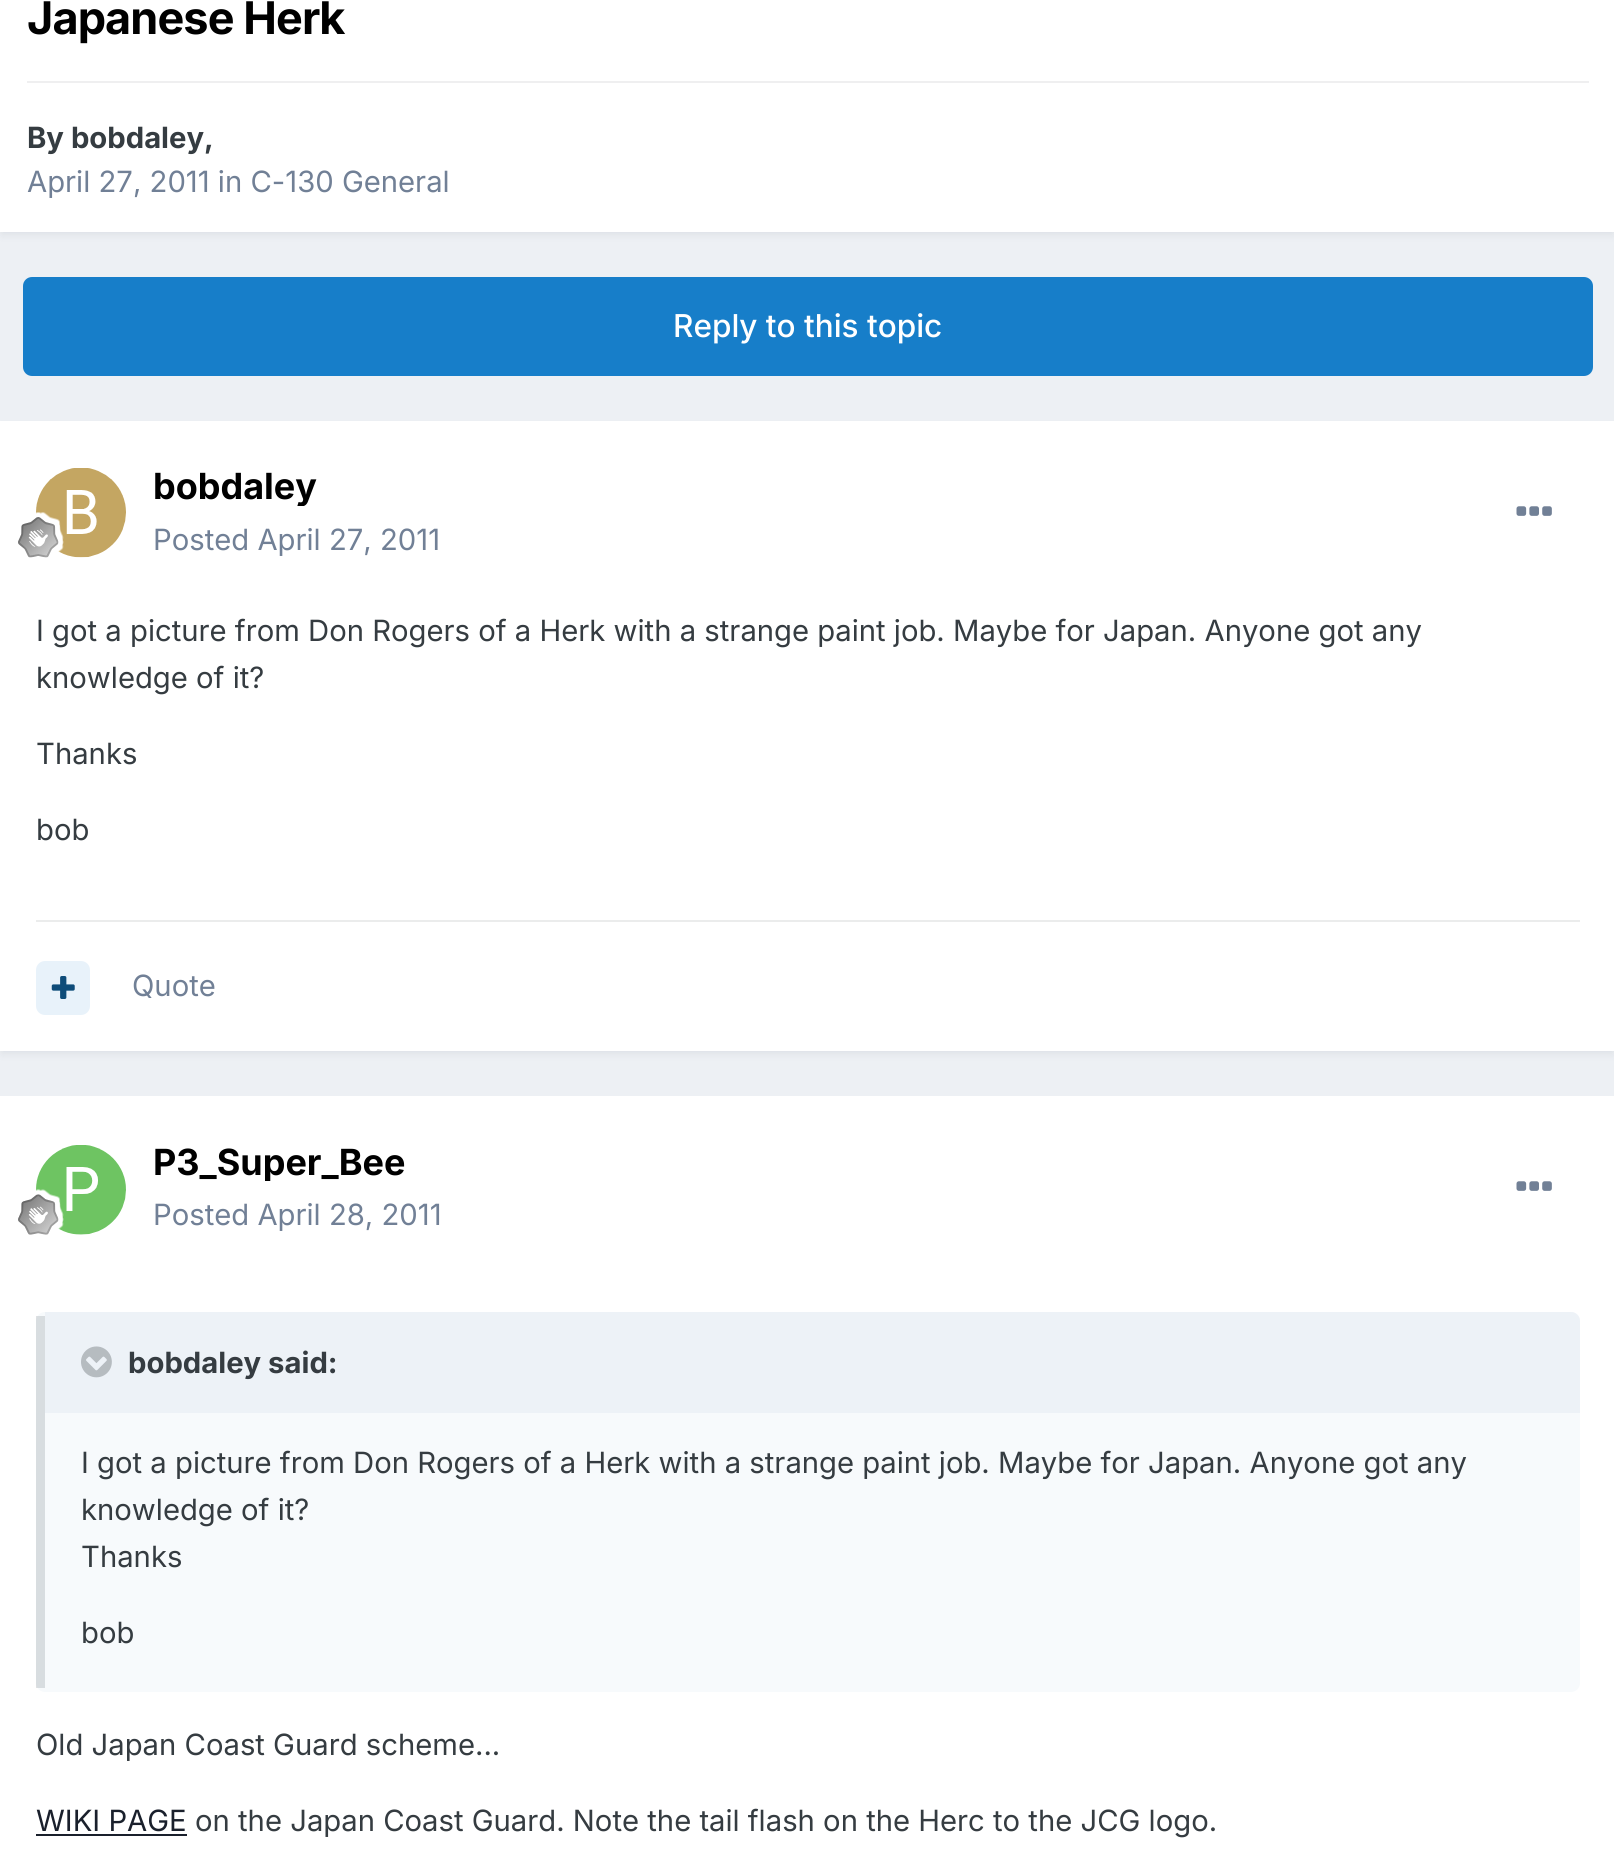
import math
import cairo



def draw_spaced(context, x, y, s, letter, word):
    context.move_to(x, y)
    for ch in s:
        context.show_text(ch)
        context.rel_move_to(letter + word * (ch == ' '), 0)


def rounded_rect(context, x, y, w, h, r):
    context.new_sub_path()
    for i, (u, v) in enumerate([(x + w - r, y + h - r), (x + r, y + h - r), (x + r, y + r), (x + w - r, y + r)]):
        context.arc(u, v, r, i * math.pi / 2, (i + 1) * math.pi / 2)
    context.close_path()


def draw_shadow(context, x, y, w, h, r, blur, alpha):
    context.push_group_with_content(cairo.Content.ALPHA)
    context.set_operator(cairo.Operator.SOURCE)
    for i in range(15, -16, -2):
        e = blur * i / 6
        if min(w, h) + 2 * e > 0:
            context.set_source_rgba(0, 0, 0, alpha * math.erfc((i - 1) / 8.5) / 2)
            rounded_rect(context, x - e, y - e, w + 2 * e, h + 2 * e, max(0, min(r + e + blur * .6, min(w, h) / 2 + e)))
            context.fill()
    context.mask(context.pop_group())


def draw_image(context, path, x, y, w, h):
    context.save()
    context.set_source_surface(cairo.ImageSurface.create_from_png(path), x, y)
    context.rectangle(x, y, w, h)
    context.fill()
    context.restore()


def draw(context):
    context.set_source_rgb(237 / 255, 240 / 255, 244 / 255)
    context.paint()
    context.set_source_rgb(45 / 255, 55 / 255, 72 / 255)
    draw_shadow(context, 2, -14, 1611, 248, 0, 4.5, 0.1)
    context.set_source_rgb(1, 1, 1)
    context.rectangle(0, 0, 1614, 232)
    context.fill()
    context.set_source_rgb(239 / 255, 239 / 255, 240 / 255)
    context.rectangle(27, 81, 1562, 2)
    context.fill()
    context.set_source_rgb(23 / 255, 126 / 255, 201 / 255)
    rounded_rect(context, 23, 277, 1570, 99, 9)
    context.fill()
    context.set_source_rgb(45 / 255, 55 / 255, 72 / 255)
    draw_shadow(context, 2, 428, 1611, 625, 0, 4.5, 0.1)
    context.set_source_rgb(1, 1, 1)
    context.rectangle(0, 421, 1614, 630)
    context.fill()
    draw_image(context, "images/1.png", 36, 468, 90, 90)
    draw_image(context, "images/2.png", 18, 512, 46, 46)
    draw_image(context, "images/3.png", 1516, 506, 36, 10)
    context.set_source_rgb(235 / 255, 236 / 255, 236 / 255)
    context.rectangle(36, 920, 1544, 2)
    context.fill()
    context.set_source_rgb(232 / 255, 242 / 255, 250 / 255)
    rounded_rect(context, 36, 961, 54, 54, 9)
    context.fill()
    draw_image(context, "images/4.png", 51, 976, 24, 23)
    context.set_source_rgb(1, 1, 1)
    context.rectangle(0, 1096, 1614, 766)
    context.fill()
    draw_image(context, "images/5.png", 36, 1145, 90, 90)
    draw_image(context, "images/6.png", 18, 1189, 46, 46)
    draw_image(context, "images/3.png", 1516, 1181, 36, 10)
    context.set_source_rgb(247 / 255, 250 / 255, 252 / 255)
    rounded_rect(context, 36, 1312, 1544, 380, 9)
    context.fill()
    context.set_source_rgba(45 / 255, 55 / 255, 72 / 255, 0.15)
    context.rectangle(36, 1316, 9, 372)
    context.fill()
    context.set_source_rgb(237 / 255, 242 / 255, 247 / 255)
    context.new_path()
    context.move_to(45, 1312)
    context.line_to(1571, 1312)
    context.curve_to(1576, 1312, 1580, 1316, 1580, 1321)
    context.line_to(1580, 1413)
    context.line_to(45, 1413)
    context.close_path()
    context.fill()
    draw_image(context, "images/7.png", 81, 1346, 31, 32)
    context.set_source_rgb(26 / 255, 32 / 255, 44 / 255)
    context.rectangle(36, 1834, 151, 2)
    context.fill()
    context.select_font_face("Inter", cairo.FontSlant.NORMAL, cairo.FontWeight.BOLD)
    context.set_font_size(45)
    context.set_source_rgb(0, 0, 0)
    draw_spaced(context, 27, 34, "Japanese Herk", -0.9, 0)
    context.set_font_size(29.25)
    context.set_source_rgb(53 / 255, 60 / 255, 65 / 255)
    context.move_to(27, 148)
    context.show_text("By bobdaley,")
    context.select_font_face("Inter")
    context.set_source_rgb(113 / 255, 128 / 255, 150 / 255)
    context.move_to(27, 192)
    context.show_text("April 27, 2011 in C-130 General")
    context.select_font_face("Inter Medium")
    context.set_font_size(31.5)
    context.set_source_rgb(1, 1, 1)
    context.move_to(673, 337)
    context.show_text("Reply to this topic")
    context.save()
    context.rectangle(153, 466, 164, 40)
    context.clip()
    context.select_font_face("Inter", cairo.FontSlant.NORMAL, cairo.FontWeight.BOLD)
    context.set_font_size(36)
    context.set_source_rgb(0, 0, 0)
    context.move_to(153, 499)
    context.show_text("bobdaley")
    context.restore()
    context.select_font_face("Inter")
    context.set_font_size(29.25)
    context.set_source_rgb(113 / 255, 128 / 255, 150 / 255)
    context.move_to(153, 550)
    context.show_text("Posted April 27, 2011")
    context.set_source_rgb(53 / 255, 60 / 255, 65 / 255)
    context.move_to(36, 641)
    context.show_text("I got a picture from Don Rogers of a Herk with a strange paint job. Maybe for Japan. Anyone got any")
    context.move_to(36, 688)
    context.show_text("knowledge of it?")
    context.move_to(36, 764)
    context.show_text("Thanks")
    context.move_to(36, 840)
    context.show_text("bob")
    context.set_source_rgb(113 / 255, 128 / 255, 150 / 255)
    context.move_to(132, 996)
    context.show_text("Quote")
    context.save()
    context.rectangle(153, 1141, 252, 40)
    context.clip()
    context.select_font_face("Inter", cairo.FontSlant.NORMAL, cairo.FontWeight.BOLD)
    context.set_font_size(36)
    context.set_source_rgb(0, 0, 0)
    context.move_to(153, 1175)
    context.show_text("P3_Super_Bee")
    context.restore()
    context.move_to(153, 1225)
    context.show_text("Posted April 28, 2011")
    context.select_font_face("Inter", cairo.FontSlant.NORMAL, cairo.FontWeight.BOLD)
    context.set_source_rgb(53 / 255, 60 / 255, 65 / 255)
    context.move_to(128, 1373)
    context.show_text("bobdaley said:")
    context.select_font_face("Inter")
    context.move_to(81, 1473)
    context.show_text("I got a picture from Don Rogers of a Herk with a strange paint job. Maybe for Japan. Anyone got any")
    context.move_to(81, 1520)
    context.show_text("knowledge of it?")
    context.move_to(81, 1567)
    context.show_text("Thanks")
    context.move_to(81, 1643)
    context.show_text("bob")
    context.move_to(36, 1755)
    context.show_text("Old Japan Coast Guard scheme...")
    context.set_source_rgb(26 / 255, 32 / 255, 44 / 255)
    context.move_to(36, 1831)
    context.show_text("WIKI PAGE")
    context.set_source_rgb(53 / 255, 60 / 255, 65 / 255)
    context.move_to(195, 1831)
    context.show_text("on the Japan Coast Guard. Note the tail flash on the Herc to the JCG logo.")


surface = cairo.ImageSurface(cairo.Format.RGB24, 1614, 1862)
context = cairo.Context(surface)
options = cairo.FontOptions()
options.set_hint_metrics(cairo.HintMetrics.OFF)
options.set_hint_style(cairo.HintStyle.NONE)
context.set_font_options(options)
context.set_miter_limit(4)
draw(context)
surface.write_to_png("out.png")
